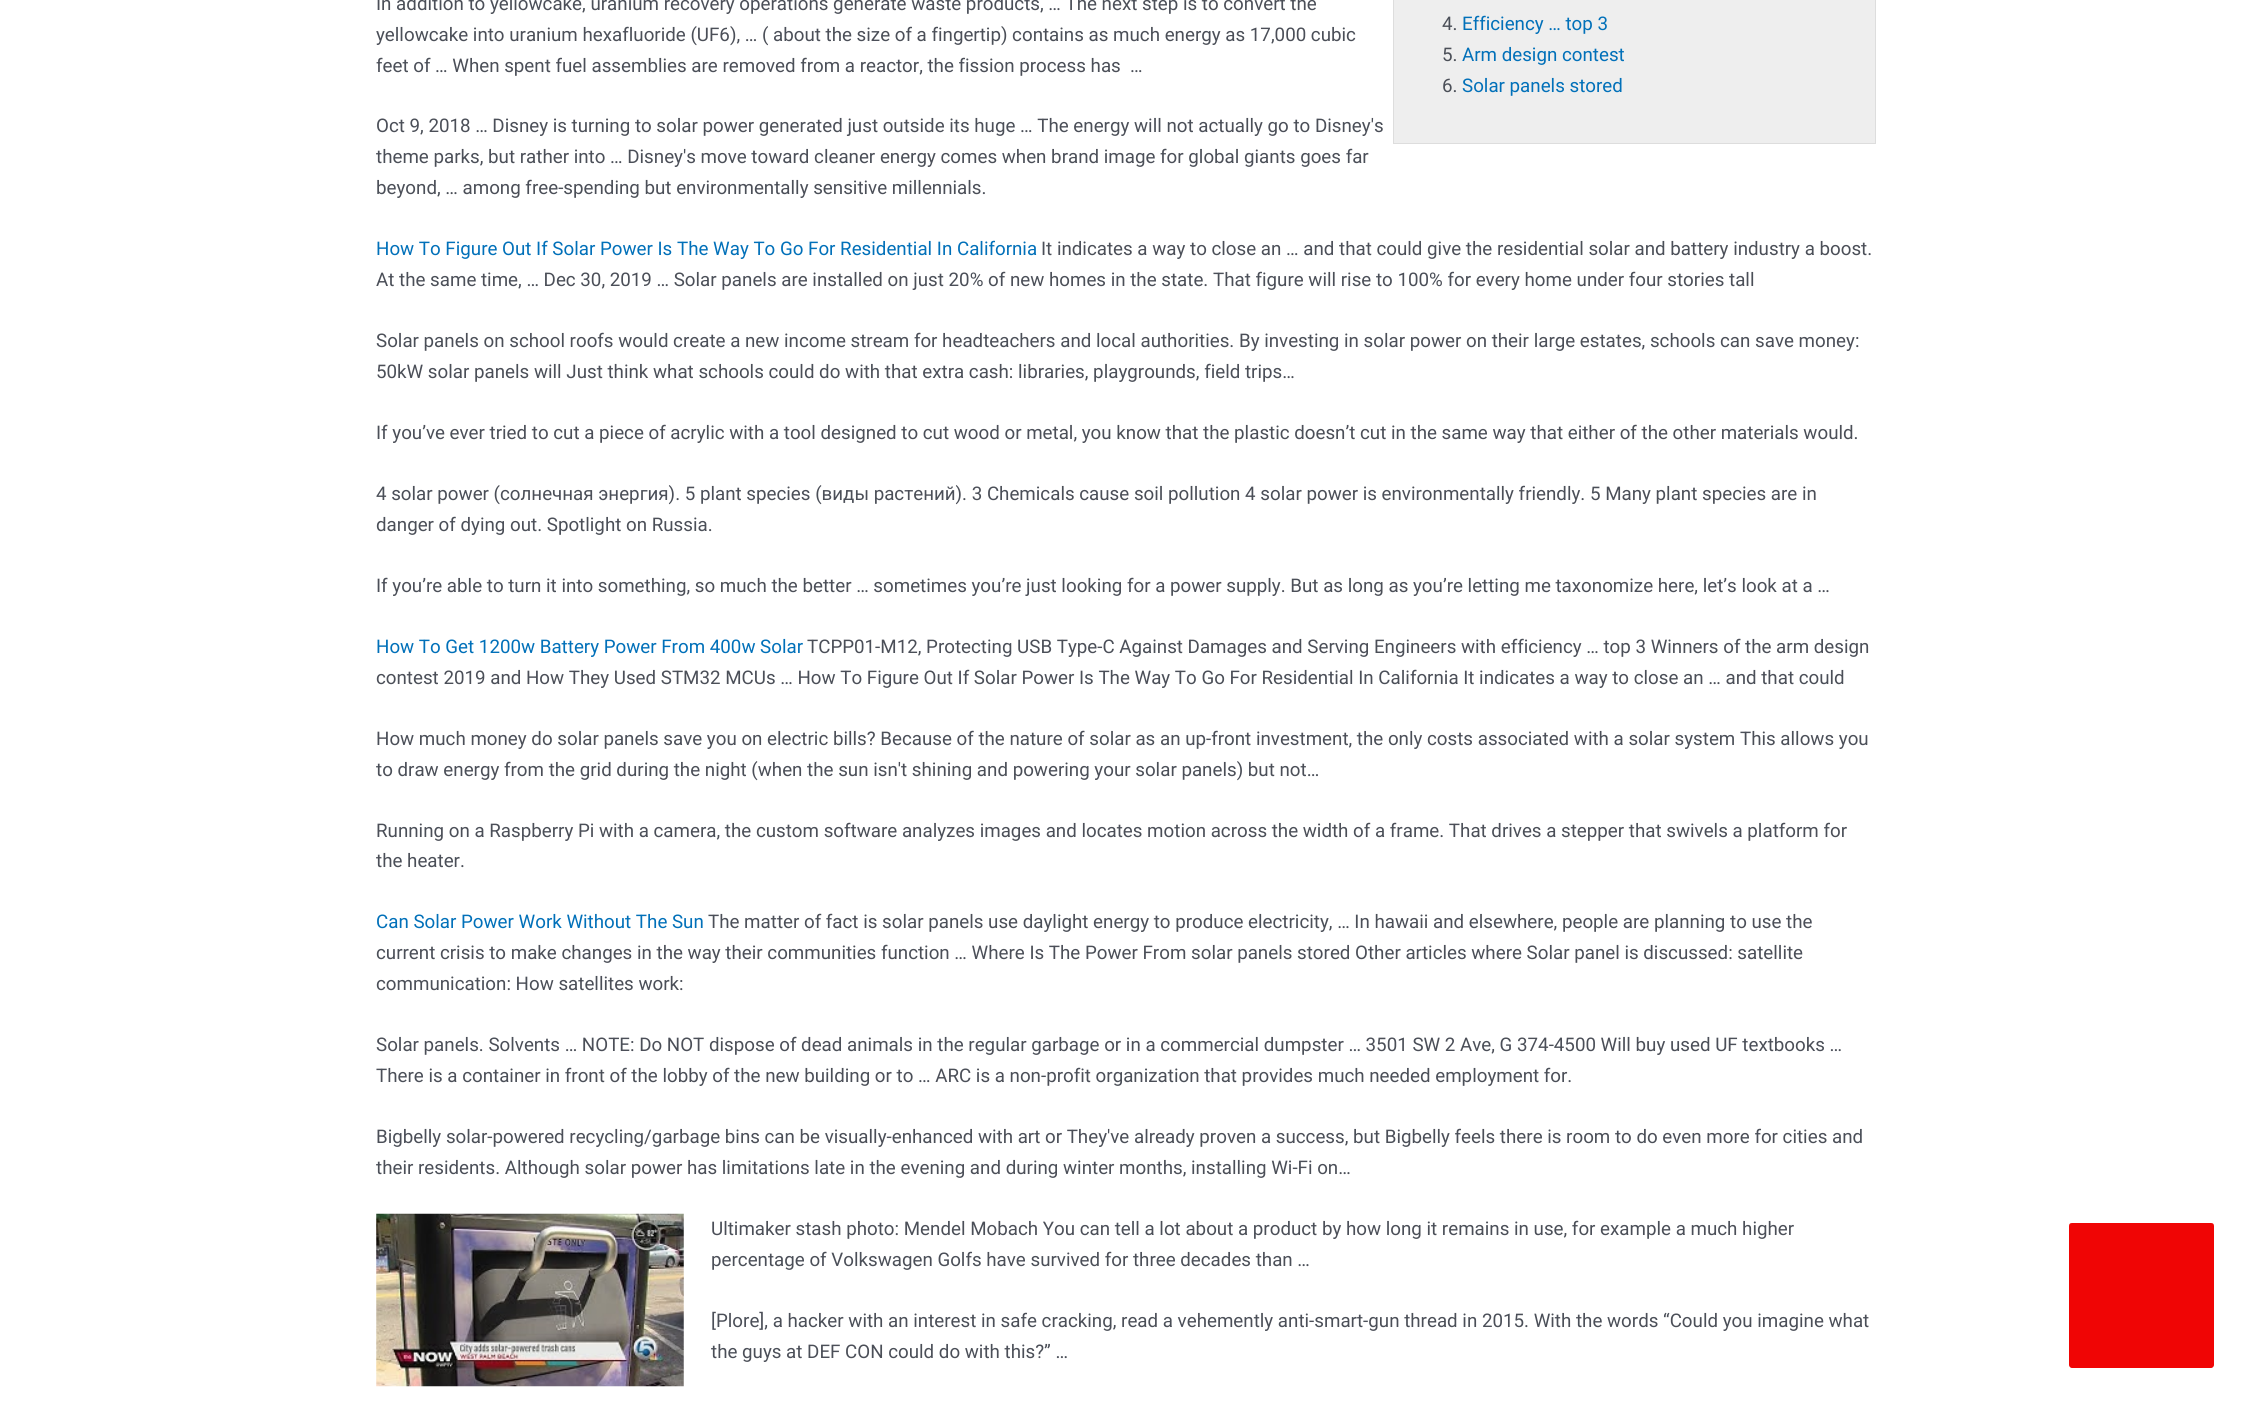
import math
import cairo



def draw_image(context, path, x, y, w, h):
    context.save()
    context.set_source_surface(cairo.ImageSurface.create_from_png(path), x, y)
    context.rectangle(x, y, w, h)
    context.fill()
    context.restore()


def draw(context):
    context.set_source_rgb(1, 1, 1)
    context.paint()
    context.set_source_rgb(238 / 255, 238 / 255, 238 / 255)
    context.rectangle(1393.5, -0.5, 482, 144)
    context.fill_preserve()
    context.set_source_rgb(221 / 255, 221 / 255, 221 / 255)
    context.set_line_width(1)
    context.stroke()
    draw_image(context, "images/1.png", 376, 1213, 308, 174)
    context.set_source_rgb(240 / 255, 5 / 255, 5 / 255)
    context.new_path()
    context.move_to(2211, 1368)
    context.line_to(2072, 1368)
    context.curve_to(2070, 1368, 2069, 1366, 2069, 1365)
    context.line_to(2069, 1226)
    context.curve_to(2069, 1224, 2070, 1223, 2072, 1223)
    context.line_to(2211, 1223)
    context.curve_to(2213, 1223, 2214, 1224, 2214, 1226)
    context.line_to(2214, 1365)
    context.curve_to(2214, 1366, 2213, 1368, 2211, 1368)
    context.close_path()
    context.fill()
    context.select_font_face("Roboto")
    context.set_font_size(18.75)
    context.set_source_rgb(75 / 255, 79 / 255, 88 / 255)
    context.move_to(376, 10)
    context.show_text("In addition to yellowcake, uranium recovery operations generate waste products, … The next step is to convert the")
    context.move_to(376, 41)
    context.show_text("yellowcake into uranium hexafluoride (UF6), … ( about the size of a fingertip) contains as much energy as 17,000 cubic")
    context.move_to(376, 72)
    context.show_text("feet of … When spent fuel assemblies are removed from a reactor, the fission process has  …")
    context.move_to(1442, 30)
    context.show_text("4.")
    context.set_source_rgb(1 / 255, 112 / 255, 185 / 255)
    context.move_to(1462, 30)
    context.show_text("Efficiency … top 3")
    context.set_source_rgb(75 / 255, 79 / 255, 88 / 255)
    context.move_to(1442, 61)
    context.show_text("5.")
    context.set_source_rgb(1 / 255, 112 / 255, 185 / 255)
    context.move_to(1462, 61)
    context.show_text("Arm design contest")
    context.set_source_rgb(75 / 255, 79 / 255, 88 / 255)
    context.move_to(1442, 92)
    context.show_text("6.")
    context.set_source_rgb(1 / 255, 112 / 255, 185 / 255)
    context.move_to(1462, 92)
    context.show_text("Solar panels stored")
    context.set_source_rgb(75 / 255, 79 / 255, 88 / 255)
    context.move_to(376, 132)
    context.show_text("Oct 9, 2018 … Disney is turning to solar power generated just outside its huge … The energy will not actually go to Disney's")
    context.move_to(376, 163)
    context.show_text("theme parks, but rather into … Disney's move toward cleaner energy comes when brand image for global giants goes far")
    context.move_to(376, 194)
    context.show_text("beyond, … among free-spending but environmentally sensitive millennials.")
    context.set_source_rgb(1 / 255, 112 / 255, 185 / 255)
    context.move_to(376, 255)
    context.show_text("How To Figure Out If Solar Power Is The Way To Go For Residential In California")
    context.set_source_rgb(75 / 255, 79 / 255, 88 / 255)
    context.move_to(1041, 255)
    context.show_text("It indicates a way to close an … and that could give the residential solar and battery industry a boost.")
    context.move_to(376, 286)
    context.show_text("At the same time, … Dec 30, 2019 … Solar panels are installed on just 20% of new homes in the state. That figure will rise to 100% for every home under four stories tall")
    context.move_to(376, 347)
    context.show_text("Solar panels on school roofs would create a new income stream for headteachers and local authorities. By investing in solar power on their large estates, schools can save money:")
    context.move_to(376, 378)
    context.show_text("50kW solar panels will Just think what schools could do with that extra cash: libraries, playgrounds, field trips…")
    context.move_to(376, 439)
    context.show_text("If you’ve ever tried to cut a piece of acrylic with a tool designed to cut wood or metal, you know that the plastic doesn’t cut in the same way that either of the other materials would.")
    context.move_to(376, 500)
    context.show_text("4 solar power (солнечная энергия). 5 plant species (виды растений). 3 Chemicals cause soil pollution 4 solar power is environmentally friendly. 5 Many plant species are in")
    context.move_to(376, 531)
    context.show_text("danger of dying out. Spotlight on Russia.")
    context.move_to(376, 592)
    context.show_text("If you’re able to turn it into something, so much the better … sometimes you’re just looking for a power supply. But as long as you’re letting me taxonomize here, let’s look at a …")
    context.set_source_rgb(1 / 255, 112 / 255, 185 / 255)
    context.move_to(376, 653)
    context.show_text("How To Get 1200w Battery Power From 400w Solar")
    context.set_source_rgb(75 / 255, 79 / 255, 88 / 255)
    context.move_to(807, 653)
    context.show_text("TCPP01-M12, Protecting USB Type-C Against Damages and Serving Engineers with efficiency … top 3 Winners of the arm design")
    context.move_to(376, 684)
    context.show_text("contest 2019 and How They Used STM32 MCUs … How To Figure Out If Solar Power Is The Way To Go For Residential In California It indicates a way to close an … and that could")
    context.move_to(376, 745)
    context.show_text("How much money do solar panels save you on electric bills? Because of the nature of solar as an up-front investment, the only costs associated with a solar system This allows you")
    context.move_to(376, 776)
    context.show_text("to draw energy from the grid during the night (when the sun isn't shining and powering your solar panels) but not…")
    context.move_to(376, 837)
    context.show_text("Running on a Raspberry Pi with a camera, the custom software analyzes images and locates motion across the width of a frame. That drives a stepper that swivels a platform for")
    context.move_to(376, 867)
    context.show_text("the heater.")
    context.set_source_rgb(1 / 255, 112 / 255, 185 / 255)
    context.move_to(376, 928)
    context.show_text("Can Solar Power Work Without The Sun")
    context.set_source_rgb(75 / 255, 79 / 255, 88 / 255)
    context.move_to(708, 928)
    context.show_text("The matter of fact is solar panels use daylight energy to produce electricity, … In hawaii and elsewhere, people are planning to use the")
    context.move_to(376, 959)
    context.show_text("current crisis to make changes in the way their communities function … Where Is The Power From solar panels stored Other articles where Solar panel is discussed: satellite")
    context.move_to(376, 990)
    context.show_text("communication: How satellites work:")
    context.move_to(376, 1051)
    context.show_text("Solar panels. Solvents … NOTE: Do NOT dispose of dead animals in the regular garbage or in a commercial dumpster … 3501 SW 2 Ave, G 374-4500 Will buy used UF textbooks …")
    context.move_to(376, 1082)
    context.show_text("There is a container in front of the lobby of the new building or to … ARC is a non-profit organization that provides much needed employment for.")
    context.move_to(376, 1143)
    context.show_text("Bigbelly solar-powered recycling/garbage bins can be visually-enhanced with art or They've already proven a success, but Bigbelly feels there is room to do even more for cities and")
    context.move_to(376, 1174)
    context.show_text("their residents. Although solar power has limitations late in the evening and during winter months, installing Wi-Fi on…")
    context.move_to(711, 1235)
    context.show_text("Ultimaker stash photo: Mendel Mobach You can tell a lot about a product by how long it remains in use, for example a much higher")
    context.move_to(711, 1266)
    context.show_text("percentage of Volkswagen Golfs have survived for three decades than …")
    context.move_to(711, 1327)
    context.show_text("[Plore], a hacker with an interest in safe cracking, read a vehemently anti-smart-gun thread in 2015. With the words “Could you imagine what")
    context.move_to(711, 1358)
    context.show_text("the guys at DEF CON could do with this?” …")


surface = cairo.ImageSurface(cairo.Format.RGB24, 2251, 1404)
context = cairo.Context(surface)
options = cairo.FontOptions()
options.set_hint_metrics(cairo.HintMetrics.OFF)
options.set_hint_style(cairo.HintStyle.NONE)
context.set_font_options(options)
context.set_miter_limit(4)
draw(context)
surface.write_to_png("out.png")
